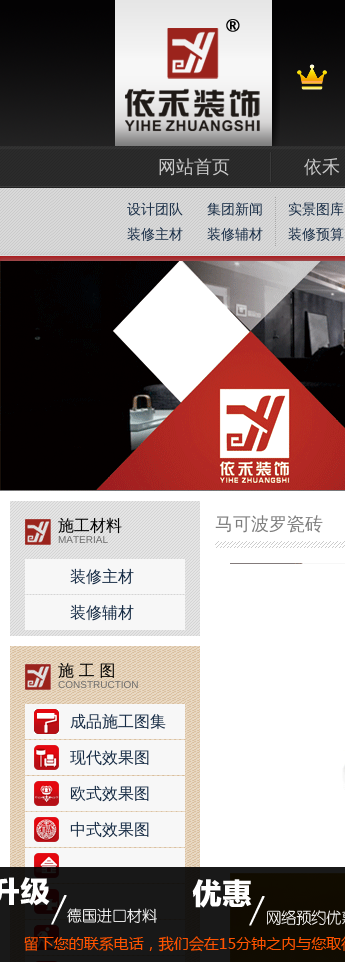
import math
import cairo



def rounded_rect(context, x, y, w, h, r):
    context.new_sub_path()
    for i, (u, v) in enumerate([(x + w - r, y + h - r), (x + r, y + h - r), (x + r, y + r), (x + w - r, y + r)]):
        context.arc(u, v, r, i * math.pi / 2, (i + 1) * math.pi / 2)
    context.close_path()


def draw_shadow(context, x, y, w, h, r, blur, alpha):
    context.push_group_with_content(cairo.Content.ALPHA)
    context.set_operator(cairo.Operator.SOURCE)
    for i in range(15, -16, -2):
        e = blur * i / 6
        if min(w, h) + 2 * e > 0:
            context.set_source_rgba(0, 0, 0, alpha * math.erfc((i - 1) / 8.5) / 2)
            rounded_rect(context, x - e, y - e, w + 2 * e, h + 2 * e, max(0, min(r + e + blur * .6, min(w, h) / 2 + e)))
            context.fill()
    context.mask(context.pop_group())


def draw_image(context, path, x, y, w, h):
    context.save()
    context.set_source_surface(cairo.ImageSurface.create_from_png(path), x, y)
    context.rectangle(x, y, w, h)
    context.fill()
    context.restore()


def draw(context):
    context.set_source_rgb(1, 1, 1)
    context.paint()
    context.set_source_rgb(176 / 255, 8 / 255, 12 / 255)
    context.rectangle(0, 256, 345, 5)
    context.fill()
    draw_image(context, "images/1.png", 0, 0, 345, 146)
    draw_image(context, "images/2.png", 115, 0, 165, 146)
    draw_image(context, "images/3.png", 297, 64, 30, 26)
    draw_image(context, "images/4.png", 0, 146, 345, 42)
    draw_image(context, "images/5.png", 270, 152, 2, 30)
    draw_image(context, "images/6.png", 0, 188, 345, 68)
    context.set_source_rgb(136 / 255, 136 / 255, 136 / 255)
    draw_shadow(context, 0, 261, 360, 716, 0, 5, 1)
    context.new_path()
    context.move_to(275.5, 197)
    context.line_to(275.5, 247)
    context.set_source_rgb(170 / 255, 170 / 255, 170 / 255)
    context.set_line_width(1)
    context.set_dash([1, 1])
    context.stroke()
    context.set_source_rgb(1, 1, 1)
    context.rectangle(0, 491, 345, 471)
    context.fill()
    draw_image(context, "images/7.png", 0, 261, 345, 230)
    draw_image(context, "images/8.png", 10, 501, 190, 135)
    draw_image(context, "images/9.png", 25, 519, 26, 26)
    context.set_source_rgb(247 / 255, 247 / 255, 247 / 255)
    context.rectangle(25, 559, 160, 35)
    context.fill()
    context.rectangle(25, 595, 160, 35)
    context.fill()
    draw_image(context, "images/10.png", 10, 646, 190, 316)
    draw_image(context, "images/9.png", 25, 664, 26, 26)
    draw_image(context, "images/11.png", 25, 696, 160, 260)
    context.rectangle(25, 704, 160, 35)
    context.fill()
    draw_image(context, "images/12.png", 34, 709, 25, 25)
    context.rectangle(25, 740, 160, 35)
    context.fill()
    draw_image(context, "images/13.png", 34, 745, 25, 25)
    context.rectangle(25, 776, 160, 35)
    context.fill()
    draw_image(context, "images/14.png", 34, 781, 25, 25)
    context.rectangle(25, 812, 160, 35)
    context.fill()
    draw_image(context, "images/15.png", 34, 817, 25, 25)
    context.rectangle(25, 848, 160, 35)
    context.fill()
    draw_image(context, "images/16.png", 34, 853, 25, 25)
    context.rectangle(25, 884, 160, 35)
    context.fill()
    draw_image(context, "images/17.png", 34, 889, 25, 25)
    context.rectangle(25, 920, 160, 35)
    context.fill()
    draw_image(context, "images/18.png", 34, 925, 25, 25)
    context.rectangle(25, 956, 160, 6)
    context.fill()
    draw_image(context, "images/19.png", 36, 961, 21, 1)
    draw_image(context, "images/20.png", 215, 541, 130, 7)
    draw_image(context, "images/21.png", 230, 563, 115, 399)
    context.set_source_rgba(0, 0, 0, 0.9)
    context.rectangle(0, 867, 345, 95)
    context.fill()
    draw_image(context, "images/22.png", 0, 877, 345, 75)
    context.select_font_face("WenQuanYi Zen Hei Medium")
    context.set_font_size(18)
    context.set_source_rgb(202 / 255, 202 / 255, 202 / 255)
    context.move_to(158, 173)
    context.show_text("网站首页")
    context.move_to(304, 173)
    context.show_text("依禾")
    context.set_font_size(14)
    context.set_source_rgb(23 / 255, 44 / 255, 69 / 255)
    context.move_to(127, 214)
    context.show_text("设计团队")
    context.move_to(207, 214)
    context.show_text("集团新闻")
    context.move_to(127, 239)
    context.show_text("装修主材")
    context.move_to(207, 239)
    context.show_text("装修辅材")
    context.move_to(288, 214)
    context.show_text("实景图库")
    context.move_to(288, 239)
    context.show_text("装修预算")
    context.set_font_size(16)
    context.set_source_rgb(0, 0, 0)
    context.move_to(58, 531)
    context.show_text("施工材料")
    context.select_font_face("Liberation Sans")
    context.set_font_size(10)
    context.set_source_rgb(108 / 255, 108 / 255, 108 / 255)
    context.move_to(58, 543)
    context.show_text("MATERIAL")
    context.select_font_face("WenQuanYi Zen Hei Medium")
    context.set_font_size(16)
    context.set_source_rgb(23 / 255, 44 / 255, 69 / 255)
    context.move_to(70, 582)
    context.show_text("装修主材")
    context.move_to(70, 618)
    context.show_text("装修辅材")
    context.set_source_rgb(0, 0, 0)
    context.move_to(58, 676)
    context.show_text("施 工 图")
    context.select_font_face("Liberation Sans")
    context.set_font_size(10)
    context.set_source_rgb(108 / 255, 108 / 255, 108 / 255)
    context.move_to(58, 688)
    context.show_text("CONSTRUCTION")
    context.select_font_face("WenQuanYi Zen Hei Medium")
    context.set_font_size(16)
    context.set_source_rgb(23 / 255, 44 / 255, 69 / 255)
    context.move_to(70, 727)
    context.show_text("成品施工图集")
    context.move_to(70, 763)
    context.show_text("现代效果图")
    context.move_to(70, 799)
    context.show_text("欧式效果图")
    context.move_to(70, 835)
    context.show_text("中式效果图")
    context.set_font_size(18)
    context.set_source_rgb(124 / 255, 124 / 255, 124 / 255)
    context.move_to(215, 530)
    context.show_text("马可波罗瓷砖")


surface = cairo.ImageSurface(cairo.Format.RGB24, 345, 962)
context = cairo.Context(surface)
options = cairo.FontOptions()
options.set_hint_metrics(cairo.HintMetrics.OFF)
options.set_hint_style(cairo.HintStyle.NONE)
context.set_font_options(options)
context.set_miter_limit(4)
draw(context)
surface.write_to_png("out.png")
